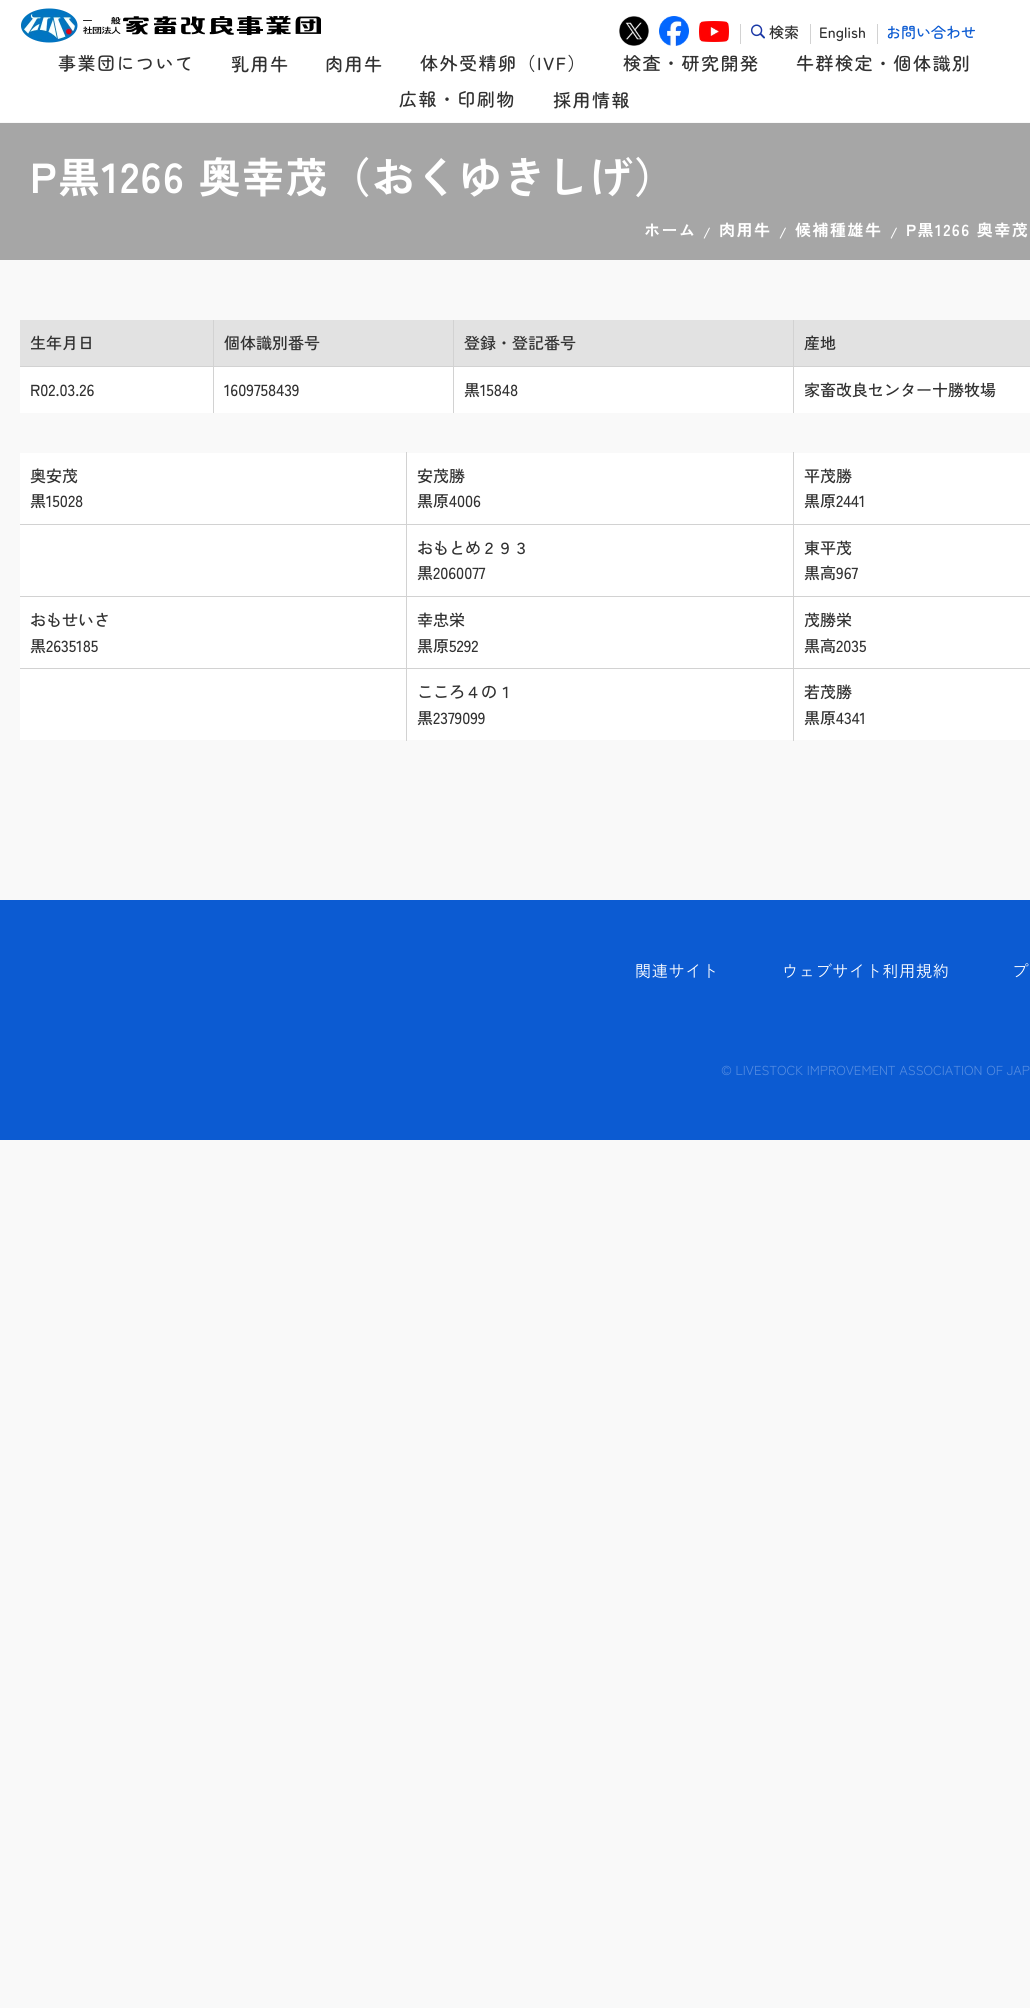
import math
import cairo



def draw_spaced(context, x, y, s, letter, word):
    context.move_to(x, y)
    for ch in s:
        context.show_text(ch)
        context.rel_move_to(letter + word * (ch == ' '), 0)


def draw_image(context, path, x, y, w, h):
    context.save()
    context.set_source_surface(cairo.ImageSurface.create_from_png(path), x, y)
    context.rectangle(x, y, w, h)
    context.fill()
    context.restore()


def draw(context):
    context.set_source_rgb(249 / 255, 249 / 255, 249 / 255)
    context.paint()
    context.set_source_rgb(1, 1, 1)
    context.rectangle(0, 0, 1030, 122)
    context.fill()
    draw_image(context, "images/1.png", 21, 8, 300, 35)
    draw_image(context, "images/2.png", 619, 16, 30, 30)
    draw_image(context, "images/3.png", 659, 16, 30, 30)
    draw_image(context, "images/4.png", 699, 21, 30, 21)
    context.set_source_rgb(210 / 255, 210 / 255, 210 / 255)
    context.rectangle(740, 24, 1, 20)
    context.fill()
    draw_image(context, "images/5.png", 751, 24, 14, 15)
    context.rectangle(810, 24, 1, 20)
    context.fill()
    context.rectangle(877, 24, 1, 20)
    context.fill()
    context.set_source_rgb(166 / 255, 166 / 255, 166 / 255)
    context.rectangle(0, 123, 1030, 137)
    context.fill()
    context.set_source_rgb(226 / 255, 226 / 255, 226 / 255)
    context.rectangle(20, 320, 193, 46)
    context.fill()
    context.set_source_rgb(210 / 255, 210 / 255, 210 / 255)
    context.rectangle(793, 366, 1, 47)
    context.fill()
    context.rectangle(793, 366, 237, 1)
    context.fill()
    context.rectangle(793, 320, 1, 47)
    context.fill()
    context.rectangle(453, 366, 1, 47)
    context.fill()
    context.rectangle(453, 366, 341, 1)
    context.fill()
    context.rectangle(453, 320, 1, 47)
    context.fill()
    context.rectangle(213, 366, 1, 47)
    context.fill()
    context.rectangle(213, 366, 241, 1)
    context.fill()
    context.rectangle(213, 320, 1, 47)
    context.fill()
    context.rectangle(20, 366, 194, 1)
    context.fill()
    context.set_source_rgb(226 / 255, 226 / 255, 226 / 255)
    context.rectangle(214, 320, 239, 46)
    context.fill()
    context.rectangle(454, 320, 339, 46)
    context.fill()
    context.rectangle(794, 320, 236, 46)
    context.fill()
    context.set_source_rgb(1, 1, 1)
    context.rectangle(20, 367, 193, 46)
    context.fill()
    context.rectangle(214, 367, 239, 46)
    context.fill()
    context.rectangle(454, 367, 339, 46)
    context.fill()
    context.rectangle(794, 367, 236, 46)
    context.fill()
    context.rectangle(20, 453, 386, 71)
    context.fill()
    context.set_source_rgb(210 / 255, 210 / 255, 210 / 255)
    context.rectangle(793, 668, 1, 73)
    context.fill()
    context.rectangle(793, 668, 237, 1)
    context.fill()
    context.rectangle(793, 596, 1, 73)
    context.fill()
    context.rectangle(793, 596, 237, 1)
    context.fill()
    context.rectangle(793, 524, 1, 73)
    context.fill()
    context.rectangle(793, 524, 237, 1)
    context.fill()
    context.rectangle(793, 452, 1, 73)
    context.fill()
    context.rectangle(406, 668, 1, 73)
    context.fill()
    context.rectangle(406, 668, 388, 1)
    context.fill()
    context.rectangle(406, 596, 1, 73)
    context.fill()
    context.rectangle(406, 596, 388, 1)
    context.fill()
    context.rectangle(406, 524, 1, 73)
    context.fill()
    context.rectangle(406, 524, 388, 1)
    context.fill()
    context.rectangle(406, 452, 1, 73)
    context.fill()
    context.rectangle(20, 524, 387, 1)
    context.fill()
    context.set_source_rgb(1, 1, 1)
    context.rectangle(407, 453, 386, 71)
    context.fill()
    context.rectangle(794, 453, 236, 71)
    context.fill()
    context.rectangle(20, 525, 386, 71)
    context.fill()
    context.set_source_rgb(210 / 255, 210 / 255, 210 / 255)
    context.rectangle(20, 596, 387, 1)
    context.fill()
    context.set_source_rgb(1, 1, 1)
    context.rectangle(407, 525, 386, 71)
    context.fill()
    context.rectangle(794, 525, 236, 71)
    context.fill()
    context.rectangle(20, 597, 386, 71)
    context.fill()
    context.set_source_rgb(210 / 255, 210 / 255, 210 / 255)
    context.rectangle(20, 668, 387, 1)
    context.fill()
    context.set_source_rgb(1, 1, 1)
    context.rectangle(407, 597, 386, 71)
    context.fill()
    context.rectangle(794, 597, 236, 71)
    context.fill()
    context.rectangle(20, 669, 386, 71)
    context.fill()
    context.rectangle(407, 669, 386, 71)
    context.fill()
    context.rectangle(794, 669, 236, 71)
    context.fill()
    context.set_source_rgb(12 / 255, 91 / 255, 210 / 255)
    context.rectangle(0, 900, 1030, 240)
    context.fill()
    context.select_font_face("Zen Maru Gothic Medium")
    context.set_font_size(15)
    context.set_source_rgb(49 / 255, 49 / 255, 49 / 255)
    context.move_to(769, 38)
    context.show_text("検索")
    context.move_to(819, 38)
    context.show_text("English")
    context.set_source_rgb(12 / 255, 91 / 255, 210 / 255)
    context.move_to(886, 38)
    context.show_text("お問い合わせ")
    context.set_font_size(18)
    context.set_source_rgb(49 / 255, 49 / 255, 49 / 255)
    context.save()
    context.translate(58, 70)
    context.rotate(0.1 * math.pi / 180)
    draw_spaced(context, 0, 0, "事業団について", 1.5, 0)
    context.restore()
    context.save()
    context.translate(231, 71)
    context.rotate(0.1 * math.pi / 180)
    draw_spaced(context, 0, 0, "乳用牛", 1.5, 0)
    context.restore()
    context.save()
    context.translate(325, 71)
    context.rotate(0.1 * math.pi / 180)
    draw_spaced(context, 0, 0, "肉用牛", 1.5, 0)
    context.restore()
    context.save()
    context.translate(420, 70)
    context.rotate(0.1 * math.pi / 180)
    draw_spaced(context, 0, 0, "体外受精卵（IVF）", 1.5, 0)
    context.restore()
    context.save()
    context.translate(623, 70)
    context.rotate(0.1 * math.pi / 180)
    draw_spaced(context, 0, 0, "検査・研究開発", 1.5, 0)
    context.restore()
    context.save()
    context.translate(796, 70)
    context.rotate(0.1 * math.pi / 180)
    draw_spaced(context, 0, 0, "牛群検定・個体識別", 1.5, 0)
    context.restore()
    context.save()
    context.translate(399, 106)
    context.rotate(0.1 * math.pi / 180)
    draw_spaced(context, 0, 0, "広報・印刷物", 1.5, 0)
    context.restore()
    context.save()
    context.translate(553, 107)
    context.rotate(0.1 * math.pi / 180)
    draw_spaced(context, 0, 0, "採用情報", 1.5, 0)
    context.restore()
    context.select_font_face("Zen Kaku Gothic Antique", cairo.FontSlant.NORMAL, cairo.FontWeight.BOLD)
    context.set_font_size(42)
    context.set_source_rgb(1, 1, 1)
    draw_spaced(context, 30, 193, "P黒1266 奥幸茂（おくゆきしげ）", 1.5, 0)
    context.set_font_size(16)
    draw_spaced(context, 644, 236, "ホーム", 1.5, 0)
    context.set_font_size(14)
    draw_spaced(context, 703, 238, "/", 1.5, 0)
    context.set_font_size(16)
    draw_spaced(context, 719, 236, "肉用牛", 1.5, 0)
    context.set_font_size(14)
    draw_spaced(context, 779, 238, "/", 1.5, 0)
    context.set_font_size(16)
    draw_spaced(context, 795, 236, "候補種雄牛", 1.5, 0)
    context.set_font_size(14)
    draw_spaced(context, 890, 238, "/", 1.5, 0)
    context.set_font_size(16)
    draw_spaced(context, 906, 236, "P黒1266 奥幸茂", 1.5, 0)
    context.select_font_face("Zen Kaku Gothic Antique Medium")
    context.set_source_rgb(49 / 255, 49 / 255, 49 / 255)
    context.move_to(30, 349)
    context.show_text("生年月日")
    context.move_to(224, 349)
    context.show_text("個体識別番号")
    context.move_to(464, 349)
    context.show_text("登録・登記番号")
    context.move_to(804, 349)
    context.show_text("産地")
    context.move_to(30, 396)
    context.show_text("R02.03.26")
    context.move_to(224, 396)
    context.show_text("1609758439")
    context.move_to(464, 396)
    context.show_text("黒15848")
    context.move_to(804, 396)
    context.show_text("家畜改良センター十勝牧場")
    context.move_to(30, 482)
    context.show_text("奥安茂")
    context.move_to(30, 507)
    context.show_text("黒15028")
    context.move_to(417, 482)
    context.show_text("安茂勝")
    context.move_to(417, 507)
    context.show_text("黒原4006")
    context.move_to(804, 482)
    context.show_text("平茂勝")
    context.move_to(804, 507)
    context.show_text("黒原2441")
    context.move_to(417, 554)
    context.show_text("おもとめ２９３")
    context.move_to(417, 579)
    context.show_text("黒2060077")
    context.move_to(804, 554)
    context.show_text("東平茂")
    context.move_to(804, 579)
    context.show_text("黒高967")
    context.move_to(30, 626)
    context.show_text("おもせいさ")
    context.move_to(30, 652)
    context.show_text("黒2635185")
    context.move_to(417, 626)
    context.show_text("幸忠栄")
    context.move_to(417, 652)
    context.show_text("黒原5292")
    context.move_to(804, 626)
    context.show_text("茂勝栄")
    context.move_to(804, 652)
    context.show_text("黒高2035")
    context.move_to(417, 698)
    context.show_text("こころ４の１")
    context.move_to(417, 724)
    context.show_text("黒2379099")
    context.move_to(804, 698)
    context.show_text("若茂勝")
    context.move_to(804, 724)
    context.show_text("黒原4341")
    context.select_font_face("Zen Kaku Gothic Antique")
    context.set_source_rgb(1, 1, 1)
    draw_spaced(context, 635, 977, "関連サイト", 0.75, 0)
    draw_spaced(context, 782, 977, "ウェブサイト利用規約", 0.75, 0)
    draw_spaced(context, 1012, 977, "プ", 0.75, 0)
    context.set_font_size(13)
    context.set_source_rgb(85 / 255, 140 / 255, 224 / 255)
    context.move_to(721, 1075)
    context.show_text("© LIVESTOCK IMPROVEMENT ASSOCIATION OF JAP")


surface = cairo.ImageSurface(cairo.Format.RGB24, 1030, 2008)
context = cairo.Context(surface)
options = cairo.FontOptions()
options.set_hint_metrics(cairo.HintMetrics.OFF)
options.set_hint_style(cairo.HintStyle.NONE)
context.set_font_options(options)
context.set_miter_limit(4)
draw(context)
surface.write_to_png("out.png")
